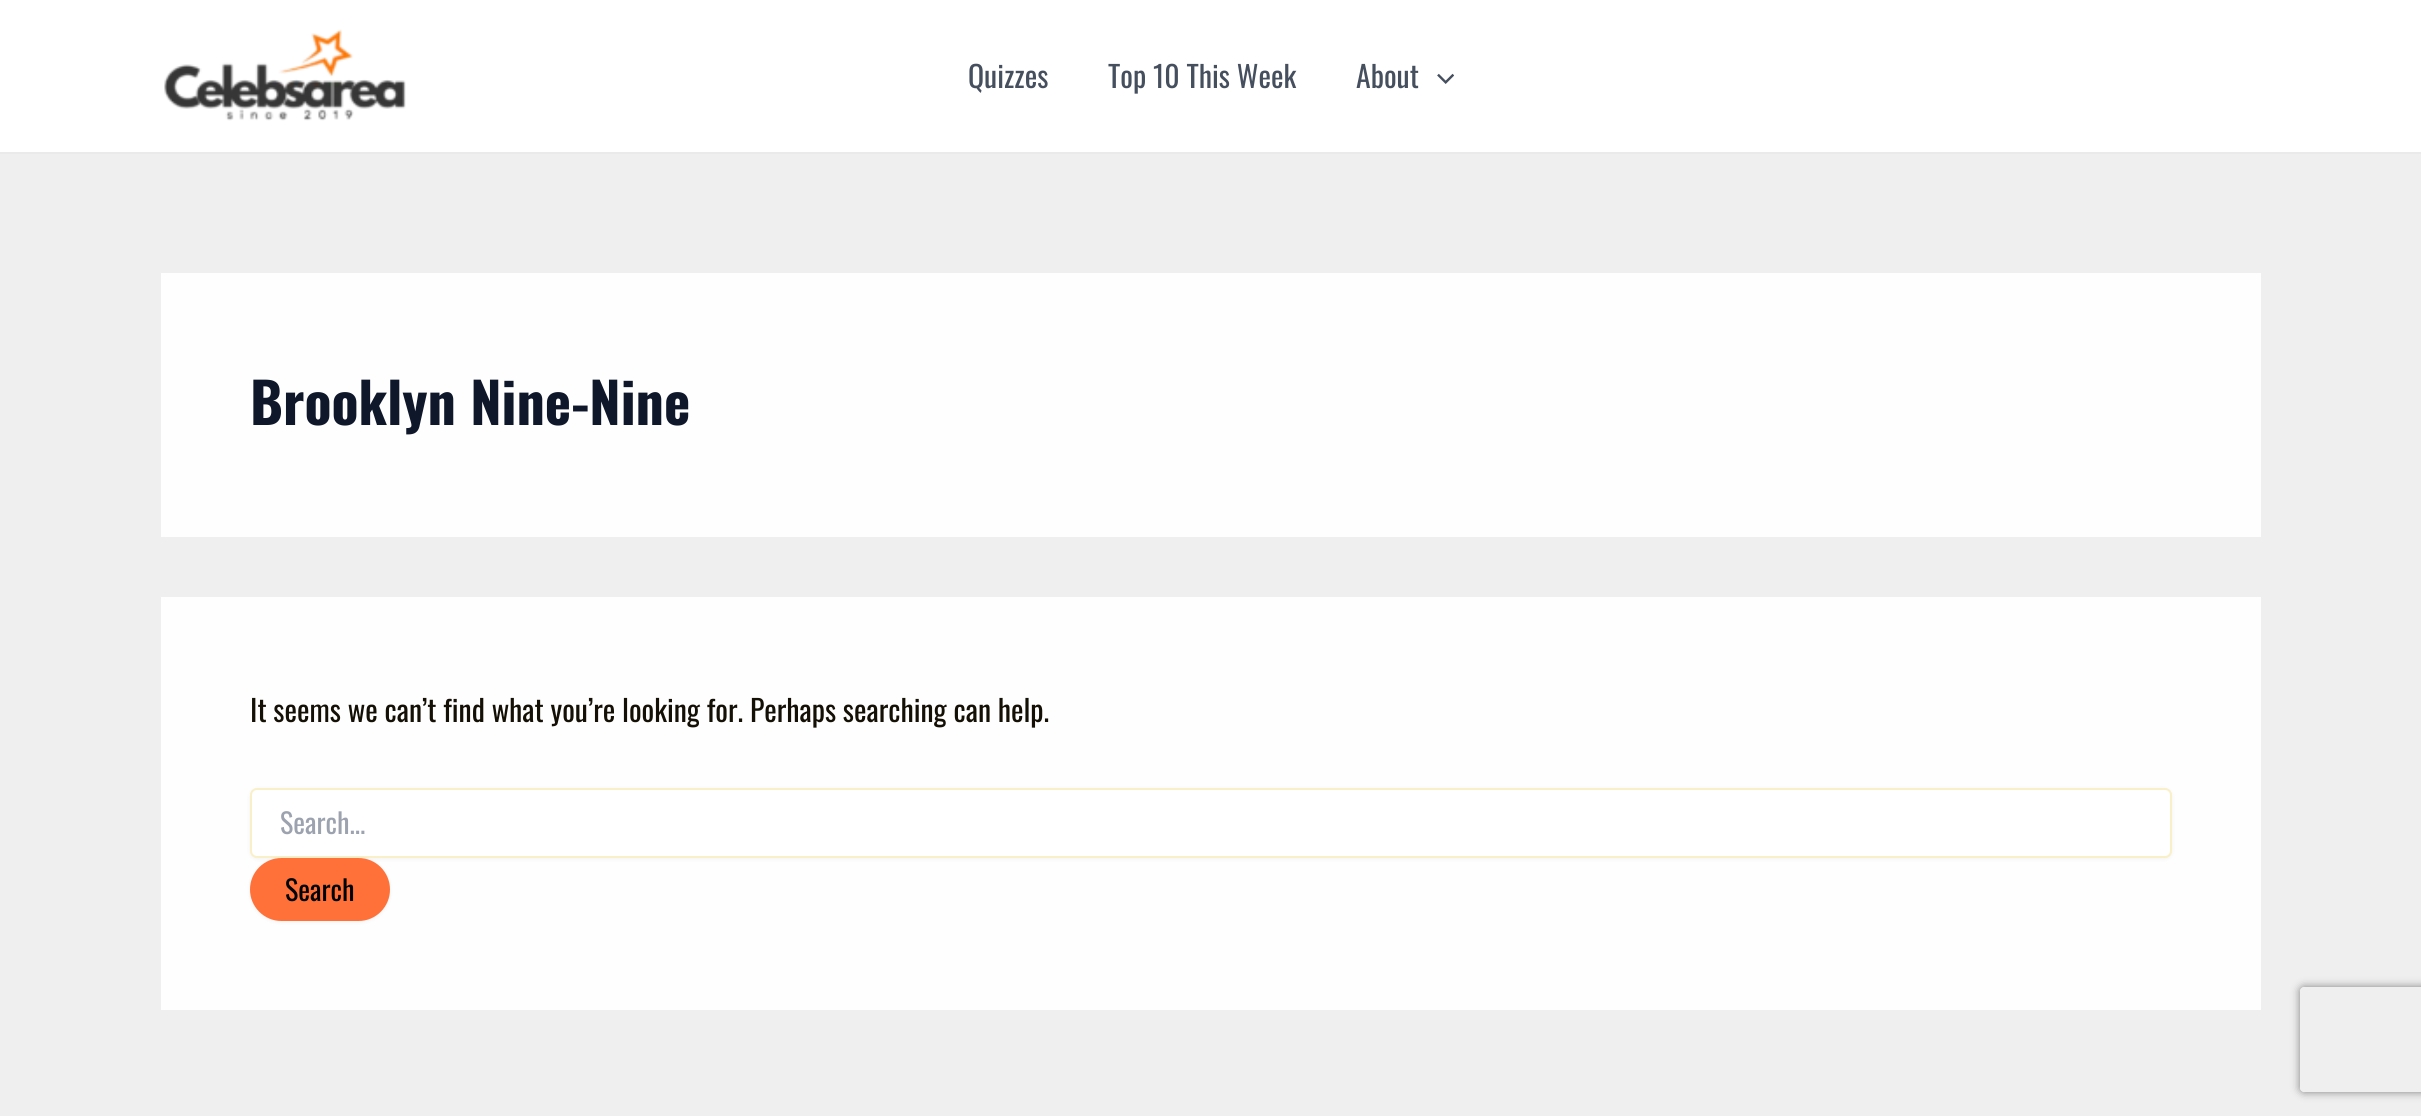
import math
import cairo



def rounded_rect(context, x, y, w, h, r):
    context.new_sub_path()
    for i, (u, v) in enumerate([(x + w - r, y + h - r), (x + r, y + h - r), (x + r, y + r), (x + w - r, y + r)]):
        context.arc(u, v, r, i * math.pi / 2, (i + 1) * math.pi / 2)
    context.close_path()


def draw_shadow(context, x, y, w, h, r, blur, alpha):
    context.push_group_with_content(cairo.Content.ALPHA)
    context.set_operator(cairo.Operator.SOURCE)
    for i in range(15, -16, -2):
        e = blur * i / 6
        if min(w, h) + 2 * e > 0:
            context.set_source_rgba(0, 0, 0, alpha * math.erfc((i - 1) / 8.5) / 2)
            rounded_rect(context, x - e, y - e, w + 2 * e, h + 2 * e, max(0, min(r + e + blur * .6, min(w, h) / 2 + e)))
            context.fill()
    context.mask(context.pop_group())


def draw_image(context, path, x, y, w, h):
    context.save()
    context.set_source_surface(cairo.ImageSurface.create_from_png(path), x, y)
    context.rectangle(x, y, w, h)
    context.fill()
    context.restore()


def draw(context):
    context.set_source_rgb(239 / 255, 239 / 255, 239 / 255)
    context.paint()
    context.set_source_rgb(1, 1, 1)
    context.rectangle(0, 0, 2421, 152)
    context.fill()
    context.set_source_rgb(234 / 255, 234 / 255, 234 / 255)
    context.rectangle(0, 152, 2421, 2)
    context.fill()
    draw_image(context, "images/1.png", 164, 29, 242, 92)
    draw_image(context, "images/2.png", 1437, 73, 17, 11)
    context.set_source_rgb(254 / 255, 254 / 255, 254 / 255)
    context.rectangle(161, 273, 2100, 264)
    context.fill()
    context.rectangle(161, 597, 2100, 413)
    context.fill()
    context.set_source_rgb(0, 0, 0)
    draw_shadow(context, 250, 789, 1922, 70, 7, 2, 0.05)
    context.set_source_rgb(1, 1, 1)
    rounded_rect(context, 251, 789, 1920, 68, 6)
    context.fill_preserve()
    context.set_source_rgb(249 / 255, 240 / 255, 200 / 255)
    context.stroke()
    context.set_source_rgb(0, 0, 0)
    draw_shadow(context, 250, 859, 140, 63, 31.5, 2, 0.05)
    context.set_source_rgb(1, 113 / 255, 57 / 255)
    rounded_rect(context, 250, 858, 140, 63, 31.5)
    context.fill()
    context.save()
    context.set_fill_rule(cairo.FillRule.EVEN_ODD)
    context.new_path()
    context.move_to(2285, 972)
    context.line_to(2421, 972)
    context.line_to(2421, 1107)
    context.line_to(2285, 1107)
    context.close_path()
    context.move_to(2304, 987)
    context.line_to(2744, 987)
    context.curve_to(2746, 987, 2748, 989, 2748, 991)
    context.line_to(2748, 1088)
    context.curve_to(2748, 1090, 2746, 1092, 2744, 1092)
    context.line_to(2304, 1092)
    context.curve_to(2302, 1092, 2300, 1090, 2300, 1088)
    context.line_to(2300, 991)
    context.curve_to(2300, 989, 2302, 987, 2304, 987)
    context.close_path()
    context.clip()
    context.set_source_rgb(128 / 255, 128 / 255, 128 / 255)
    draw_shadow(context, 2300, 987, 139, 105, 4, 4.5, 1)
    context.restore()
    context.select_font_face("Oswald")
    context.set_font_size(29.75)
    context.set_source_rgb(69 / 255, 79 / 255, 94 / 255)
    context.move_to(968, 88)
    context.show_text("Quizzes")
    context.move_to(1108, 88)
    context.show_text("Top 10 This Week")
    context.move_to(1356, 88)
    context.show_text("About")
    context.select_font_face("Oswald", cairo.FontSlant.NORMAL, cairo.FontWeight.BOLD)
    context.set_font_size(56)
    context.set_source_rgb(15 / 255, 23 / 255, 42 / 255)
    context.move_to(250, 425)
    context.show_text("Brooklyn Nine-Nine")
    context.select_font_face("Oswald")
    context.set_font_size(29.75)
    context.set_source_rgb(20 / 255, 16 / 255, 6 / 255)
    context.move_to(250, 722)
    context.show_text("It seems we can’t find what you’re looking for. Perhaps searching can help.")
    context.set_font_size(28)
    context.set_source_rgb(156 / 255, 163 / 255, 175 / 255)
    context.move_to(280, 834)
    context.show_text("Search...")
    context.set_source_rgb(0, 0, 0)
    context.move_to(285, 901)
    context.show_text("Search")


surface = cairo.ImageSurface(cairo.Format.RGB24, 2421, 1116)
context = cairo.Context(surface)
options = cairo.FontOptions()
options.set_hint_metrics(cairo.HintMetrics.OFF)
options.set_hint_style(cairo.HintStyle.NONE)
context.set_font_options(options)
context.set_miter_limit(4)
draw(context)
surface.write_to_png("out.png")
